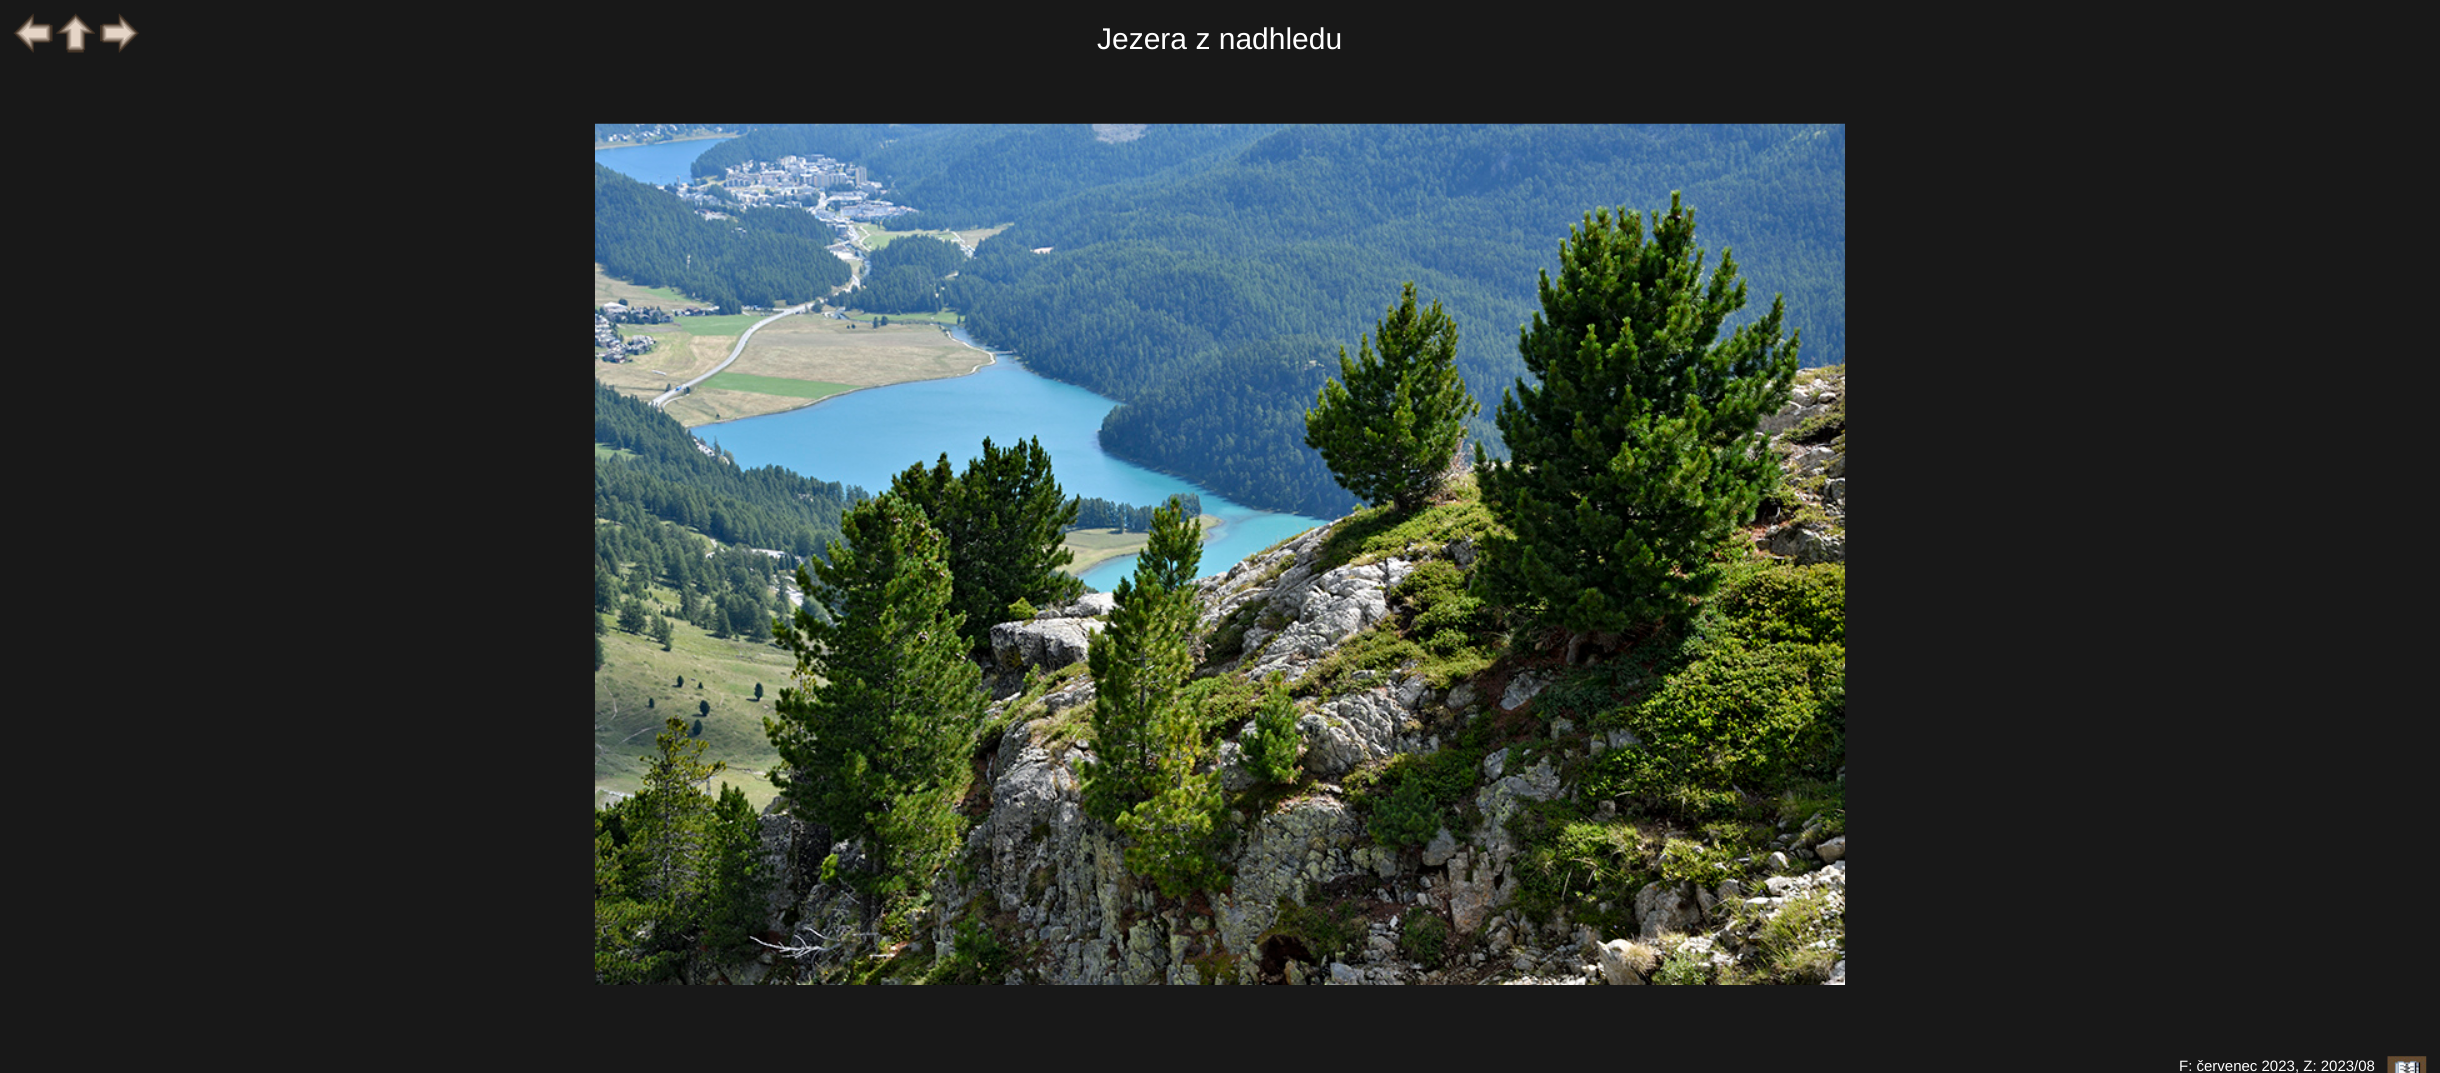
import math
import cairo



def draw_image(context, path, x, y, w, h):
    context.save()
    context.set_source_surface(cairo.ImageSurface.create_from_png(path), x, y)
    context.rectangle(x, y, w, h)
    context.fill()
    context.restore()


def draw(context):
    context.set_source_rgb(24 / 255, 24 / 255, 24 / 255)
    context.paint()
    draw_image(context, "images/1.png", 13, 13, 40, 40)
    draw_image(context, "images/2.png", 56, 13, 39, 40)
    draw_image(context, "images/3.png", 100, 13, 39, 40)
    draw_image(context, "images/4.png", 595, 123, 1250, 862)
    draw_image(context, "images/5.png", 2387, 1056, 40, 17)
    context.select_font_face("Liberation Sans")
    context.set_font_size(30)
    context.set_source_rgb(1, 1, 1)
    context.move_to(1097, 49)
    context.show_text("Jezera z nadhledu")
    context.set_font_size(15)
    context.move_to(2179, 1071)
    context.show_text("F: červenec 2023, Z: 2023/08")


surface = cairo.ImageSurface(cairo.Format.RGB24, 2440, 1073)
context = cairo.Context(surface)
options = cairo.FontOptions()
options.set_hint_metrics(cairo.HintMetrics.OFF)
options.set_hint_style(cairo.HintStyle.NONE)
context.set_font_options(options)
context.set_miter_limit(4)
draw(context)
surface.write_to_png("out.png")
